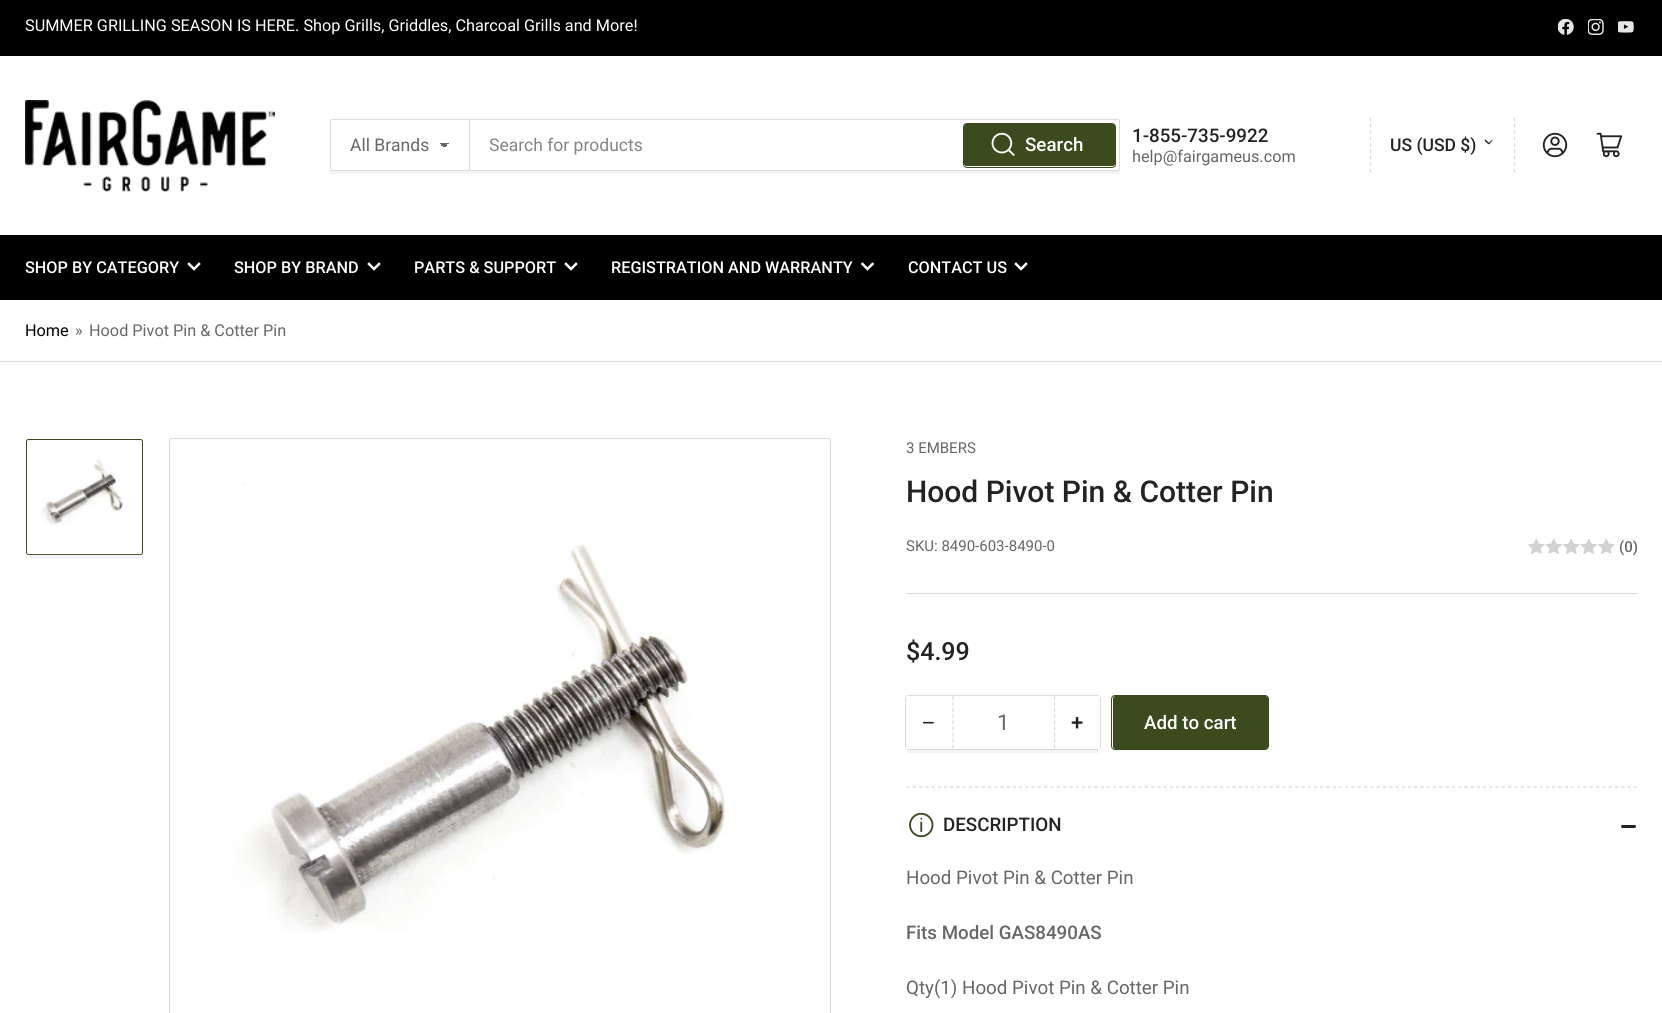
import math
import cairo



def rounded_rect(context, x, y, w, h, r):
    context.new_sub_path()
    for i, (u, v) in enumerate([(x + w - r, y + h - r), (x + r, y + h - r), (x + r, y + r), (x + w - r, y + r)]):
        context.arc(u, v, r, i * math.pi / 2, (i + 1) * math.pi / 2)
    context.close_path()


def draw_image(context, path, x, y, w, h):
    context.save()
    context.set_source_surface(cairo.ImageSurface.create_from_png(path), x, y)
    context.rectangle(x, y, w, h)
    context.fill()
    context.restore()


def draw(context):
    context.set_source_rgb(1, 1, 1)
    context.paint()
    context.set_source_rgb(0, 0, 0)
    context.rectangle(0, 0, 1662, 56)
    context.fill()
    draw_image(context, "images/1.png", 1558, 19, 16, 16)
    draw_image(context, "images/2.png", 1588, 19, 16, 16)
    draw_image(context, "images/3.png", 1618, 21, 16, 12)
    draw_image(context, "images/4.png", 25, 100, 250, 92)
    rounded_rect(context, 330.5, 119.5, 139, 51, 2)
    context.set_source_rgb(218 / 255, 218 / 255, 218 / 255)
    context.set_line_width(1)
    context.stroke()
    context.set_source_rgba(218 / 255, 218 / 255, 218 / 255, 0.3)
    context.new_path()
    context.move_to(330, 169)
    context.line_to(330, 172)
    context.curve_to(330, 173, 331, 174, 332, 174)
    context.line_to(470, 174)
    context.line_to(470, 171)
    context.line_to(332, 171)
    context.curve_to(331, 171, 330, 170, 330, 169)
    context.close_path()
    context.fill()
    context.set_source_rgb(1, 1, 1)
    context.new_path()
    context.move_to(332.5, 119)
    context.line_to(470, 119)
    context.line_to(470, 171)
    context.line_to(332.5, 171)
    context.curve_to(331, 171, 330, 170, 330, 168.5)
    context.line_to(330, 121.5)
    context.curve_to(330, 120, 331, 119, 332.5, 119)
    context.close_path()
    context.fill()
    gradient = cairo.LinearGradient(444, 142, 450, 148)
    gradient.add_color_stop_rgba(0.5, 103 / 255, 103 / 255, 103 / 255, 1)
    gradient.add_color_stop_rgba(0.5, 1, 1, 1, 1)
    context.set_source(gradient)
    context.rectangle(444, 143, 6, 4)
    context.fill()
    gradient = cairo.LinearGradient(438, 148, 444, 142)
    gradient.add_color_stop_rgba(0.5, 1, 1, 1, 1)
    gradient.add_color_stop_rgba(0.5, 103 / 255, 103 / 255, 103 / 255, 1)
    context.set_source(gradient)
    context.rectangle(438, 143, 6, 4)
    context.fill()
    context.new_path()
    context.move_to(332.5, 119.5)
    context.line_to(469.5, 119.5)
    context.line_to(469.5, 170.5)
    context.line_to(332.5, 170.5)
    context.curve_to(331.5, 170.5, 330.5, 169.5, 330.5, 168.5)
    context.line_to(330.5, 121.5)
    context.curve_to(330.5, 120.5, 331.5, 119.5, 332.5, 119.5)
    context.close_path()
    context.set_source_rgb(218 / 255, 218 / 255, 218 / 255)
    context.stroke()
    context.set_source_rgb(244 / 255, 244 / 255, 244 / 255)
    context.new_path()
    context.move_to(470, 171)
    context.line_to(470, 174)
    context.line_to(1118, 174)
    context.curve_to(1120, 174, 1120, 171, 1120, 169)
    context.curve_to(1120, 170, 1119, 171, 1118, 171)
    context.close_path()
    context.fill()
    context.set_source_rgb(218 / 255, 218 / 255, 218 / 255)
    context.rectangle(470, 119, 649, 1)
    context.fill()
    context.rectangle(1119, 120, 1, 50)
    context.fill()
    context.rectangle(470, 170, 649, 1)
    context.fill()
    rounded_rect(context, 963.5, 123.5, 152, 44, 3.5)
    context.set_source_rgb(60 / 255, 75 / 255, 30 / 255)
    context.stroke()
    rounded_rect(context, 964, 124, 151, 42, 2.5)
    context.fill()
    draw_image(context, "images/5.png", 991, 132, 24, 24)
    context.new_path()
    context.move_to(1514.5, 117.5)
    context.line_to(1514.5, 172.5)
    context.set_source_rgb(218 / 255, 218 / 255, 218 / 255)
    context.set_line_width(1.2)
    context.set_dash([3.75, 2.65])
    context.stroke()
    context.new_path()
    context.move_to(1370.5, 117.5)
    context.line_to(1370.5, 172.5)
    context.stroke()
    context.set_source_rgb(35 / 255, 35 / 255, 35 / 255)
    context.new_path()
    context.move_to(1485.5, 139.5)
    context.line_to(1488.5, 142.5)
    context.curve_to(1490, 144, 1489, 145, 1487.5, 143.5)
    context.curve_to(1487, 143, 1483.5, 140.5, 1485, 139.5)
    context.close_path()
    context.fill()
    context.new_path()
    context.move_to(1488.5, 143)
    context.line_to(1491.5, 140.5)
    context.curve_to(1493, 139, 1493.5, 139.5, 1492, 141)
    context.curve_to(1491.5, 141.5, 1489, 145, 1488.5, 144)
    context.close_path()
    context.fill()
    draw_image(context, "images/6.png", 1542, 132, 26, 26)
    draw_image(context, "images/7.png", 1596, 132, 27, 26)
    context.set_source_rgb(0, 0, 0)
    context.rectangle(0, 235, 1662, 65)
    context.fill()
    context.new_path()
    context.move_to(199, 264)
    context.line_to(194, 269)
    context.line_to(189, 264)
    context.set_source_rgb(1, 1, 1)
    context.set_line_width(2.5)
    context.set_line_cap(cairo.LineCap.SQUARE)
    context.set_dash([])
    context.stroke()
    context.new_path()
    context.move_to(379, 264)
    context.line_to(374, 269)
    context.line_to(369, 264)
    context.stroke()
    context.new_path()
    context.move_to(576, 264)
    context.line_to(571, 269)
    context.line_to(566, 264)
    context.stroke()
    context.new_path()
    context.move_to(872.5, 264)
    context.line_to(867.5, 269)
    context.line_to(862.5, 264)
    context.stroke()
    context.new_path()
    context.move_to(1026, 264)
    context.line_to(1021, 269)
    context.line_to(1016, 264)
    context.stroke()
    context.set_source_rgb(218 / 255, 218 / 255, 218 / 255)
    context.rectangle(0, 361, 1662, 1)
    context.fill()
    context.set_source_rgb(244 / 255, 244 / 255, 244 / 255)
    context.new_path()
    context.move_to(26, 444)
    context.line_to(26, 556)
    context.curve_to(26, 558, 27, 559, 28, 559)
    context.line_to(140, 559)
    context.curve_to(142, 559, 143, 558, 143, 556)
    context.line_to(143, 446)
    context.line_to(142, 444)
    context.line_to(142, 552)
    context.curve_to(142, 554, 141, 555, 140, 555)
    context.line_to(29, 555)
    context.curve_to(27, 555, 26, 554, 26, 552)
    context.close_path()
    context.fill()
    context.set_source_rgb(1, 1, 1)
    rounded_rect(context, 26.5, 439.5, 116, 115, 2)
    context.fill_preserve()
    context.set_source_rgb(60 / 255, 75 / 255, 30 / 255)
    context.set_line_width(1)
    context.set_line_cap(cairo.LineCap.BUTT)
    context.stroke()
    draw_image(context, "images/8.png", 40, 458, 84, 68)
    gradient = cairo.LinearGradient(84, 594, 84, 550)
    gradient.add_color_stop_rgba(0, 1, 1, 1, 1)
    gradient.add_color_stop_rgba(1, 1, 1, 1, 0)
    context.set_source(gradient)
    context.rectangle(26, 551, 117, 4)
    context.fill()
    rounded_rect(context, 169.5, 438.5, 661, 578, 2)
    context.set_source_rgb(218 / 255, 218 / 255, 218 / 255)
    context.stroke()
    draw_image(context, "images/9.png", 233, 482, 493, 451)
    context.rectangle(906, 593, 732, 1)
    context.fill()
    draw_image(context, "images/10.png", 1527, 538, 18, 17)
    draw_image(context, "images/11.png", 1545, 538, 18, 17)
    draw_image(context, "images/12.png", 1562, 538, 18, 17)
    draw_image(context, "images/11.png", 1580, 538, 18, 17)
    draw_image(context, "images/12.png", 1597, 538, 18, 17)
    context.set_source_rgb(244 / 255, 244 / 255, 244 / 255)
    context.new_path()
    context.move_to(906, 701)
    context.line_to(906, 750)
    context.curve_to(906, 752, 907, 753, 908, 753)
    context.line_to(1098, 753)
    context.curve_to(1099, 753, 1100, 752, 1100, 750)
    context.line_to(1100, 746)
    context.curve_to(1100, 748, 1099, 749, 1098, 749)
    context.line_to(909, 749)
    context.curve_to(907, 749, 906, 748, 906, 746)
    context.close_path()
    context.fill()
    rounded_rect(context, 905.5, 695.5, 195, 54, 3.5)
    context.set_source_rgb(218 / 255, 218 / 255, 218 / 255)
    context.stroke()
    context.set_source_rgb(1, 1, 1)
    context.rectangle(906, 696, 3, 53)
    context.fill()
    context.new_path()
    context.move_to(1054.5, 696)
    context.line_to(1054.5, 749)
    context.set_source_rgb(218 / 255, 218 / 255, 218 / 255)
    context.set_line_width(1.2)
    context.set_dash([3.75, 2.35])
    context.stroke()
    context.new_path()
    context.move_to(953, 696)
    context.line_to(953, 749)
    context.stroke()
    context.set_source_rgb(1, 1, 1)
    context.rectangle(1097, 696, 3, 53)
    context.fill()
    rounded_rect(context, 1111.5, 695.5, 157, 54, 3.5)
    context.set_source_rgb(60 / 255, 75 / 255, 30 / 255)
    context.set_line_width(1)
    context.set_dash([])
    context.stroke()
    rounded_rect(context, 1113, 696, 155, 53, 2.5)
    context.fill()
    context.new_path()
    context.move_to(906, 787)
    context.line_to(1637.5, 787)
    context.set_source_rgb(218 / 255, 218 / 255, 218 / 255)
    context.set_line_width(1.2)
    context.set_dash([3.75, 2.52])
    context.stroke()
    draw_image(context, "images/13.png", 909, 812, 25, 26)
    context.set_source_rgb(35 / 255, 35 / 255, 35 / 255)
    rounded_rect(context, 1621, 825, 9, 3, 1.5)
    context.fill()
    rounded_rect(context, 1626, 825, 10, 3, 1.5)
    context.fill()
    context.select_font_face("Roboto")
    context.set_font_size(16.25)
    context.set_source_rgb(1, 1, 1)
    context.move_to(25, 31)
    context.show_text("SUMMER GRILLING SEASON IS HERE. Shop Grills, Griddles, Charcoal Grills and More!")
    context.set_font_size(17.5)
    context.set_source_rgb(103 / 255, 103 / 255, 103 / 255)
    context.move_to(350, 151)
    context.show_text("All Brands")
    context.set_source_rgb(133 / 255, 133 / 255, 133 / 255)
    context.move_to(489, 151)
    context.show_text("Search for products")
    context.select_font_face("Roboto Medium")
    context.set_font_size(18.75)
    context.set_source_rgb(1, 1, 1)
    context.move_to(1025, 151)
    context.show_text("Search")
    context.set_source_rgb(35 / 255, 35 / 255, 35 / 255)
    context.move_to(1132, 142)
    context.show_text("1-855-735-9922")
    context.select_font_face("Roboto")
    context.set_font_size(16.25)
    context.set_source_rgb(103 / 255, 103 / 255, 103 / 255)
    context.move_to(1132, 162)
    context.show_text("help@fairgameus.com")
    context.select_font_face("Roboto Medium")
    context.set_font_size(17.5)
    context.set_source_rgb(35 / 255, 35 / 255, 35 / 255)
    context.move_to(1390, 151)
    context.show_text("US (USD $)")
    context.set_font_size(16.25)
    context.set_source_rgb(1, 1, 1)
    context.move_to(25, 273)
    context.show_text("SHOP BY CATEGORY")
    context.move_to(234, 273)
    context.show_text("SHOP BY BRAND")
    context.move_to(414, 273)
    context.show_text("PARTS & SUPPORT")
    context.move_to(611, 273)
    context.show_text("REGISTRATION AND WARRANTY")
    context.move_to(908, 273)
    context.show_text("CONTACT US")
    context.select_font_face("Roboto")
    context.set_source_rgb(0, 0, 0)
    context.move_to(25, 336)
    context.show_text("Home")
    context.set_source_rgb(103 / 255, 103 / 255, 103 / 255)
    context.move_to(75, 336)
    context.show_text("»")
    context.move_to(89, 336)
    context.show_text("Hood Pivot Pin & Cotter Pin")
    context.set_font_size(15)
    context.move_to(906, 453)
    context.show_text("3 EMBERS")
    context.select_font_face("Roboto Medium")
    context.set_font_size(30)
    context.set_source_rgb(35 / 255, 35 / 255, 35 / 255)
    context.move_to(906, 502)
    context.show_text("Hood Pivot Pin & Cotter Pin")
    context.select_font_face("Roboto")
    context.set_font_size(15)
    context.set_source_rgb(103 / 255, 103 / 255, 103 / 255)
    context.move_to(906, 551)
    context.show_text("SKU: 8490-603-8490-0")
    context.select_font_face("Roboto Medium")
    context.move_to(1619, 552)
    context.show_text("(0)")
    context.set_font_size(25)
    context.set_source_rgb(35 / 255, 35 / 255, 35 / 255)
    context.move_to(906, 660)
    context.show_text("$4.99")
    context.select_font_face("Liberation Sans")
    context.set_font_size(22)
    context.move_to(922, 730)
    context.show_text("−")
    context.select_font_face("Roboto")
    context.set_source_rgb(103 / 255, 103 / 255, 103 / 255)
    context.move_to(997, 730)
    context.show_text("1")
    context.select_font_face("Roboto Medium")
    context.set_source_rgb(35 / 255, 35 / 255, 35 / 255)
    context.move_to(1071, 730)
    context.show_text("+")
    context.set_font_size(18.75)
    context.set_source_rgb(1, 1, 1)
    context.move_to(1144, 729)
    context.show_text("Add to cart")
    context.set_source_rgb(35 / 255, 35 / 255, 35 / 255)
    context.move_to(943, 831)
    context.show_text("DESCRIPTION")
    context.select_font_face("Roboto")
    context.set_source_rgb(103 / 255, 103 / 255, 103 / 255)
    context.move_to(906, 884)
    context.show_text("Hood Pivot Pin & Cotter Pin")
    context.select_font_face("Roboto Medium")
    context.move_to(906, 939)
    context.show_text("Fits Model GAS8490AS")
    context.select_font_face("Roboto")
    context.move_to(906, 994)
    context.show_text("Qty(1) Hood Pivot Pin & Cotter Pin")


surface = cairo.ImageSurface(cairo.Format.RGB24, 1662, 1013)
context = cairo.Context(surface)
options = cairo.FontOptions()
options.set_hint_metrics(cairo.HintMetrics.OFF)
options.set_hint_style(cairo.HintStyle.NONE)
context.set_font_options(options)
context.set_miter_limit(4)
draw(context)
surface.write_to_png("out.png")
